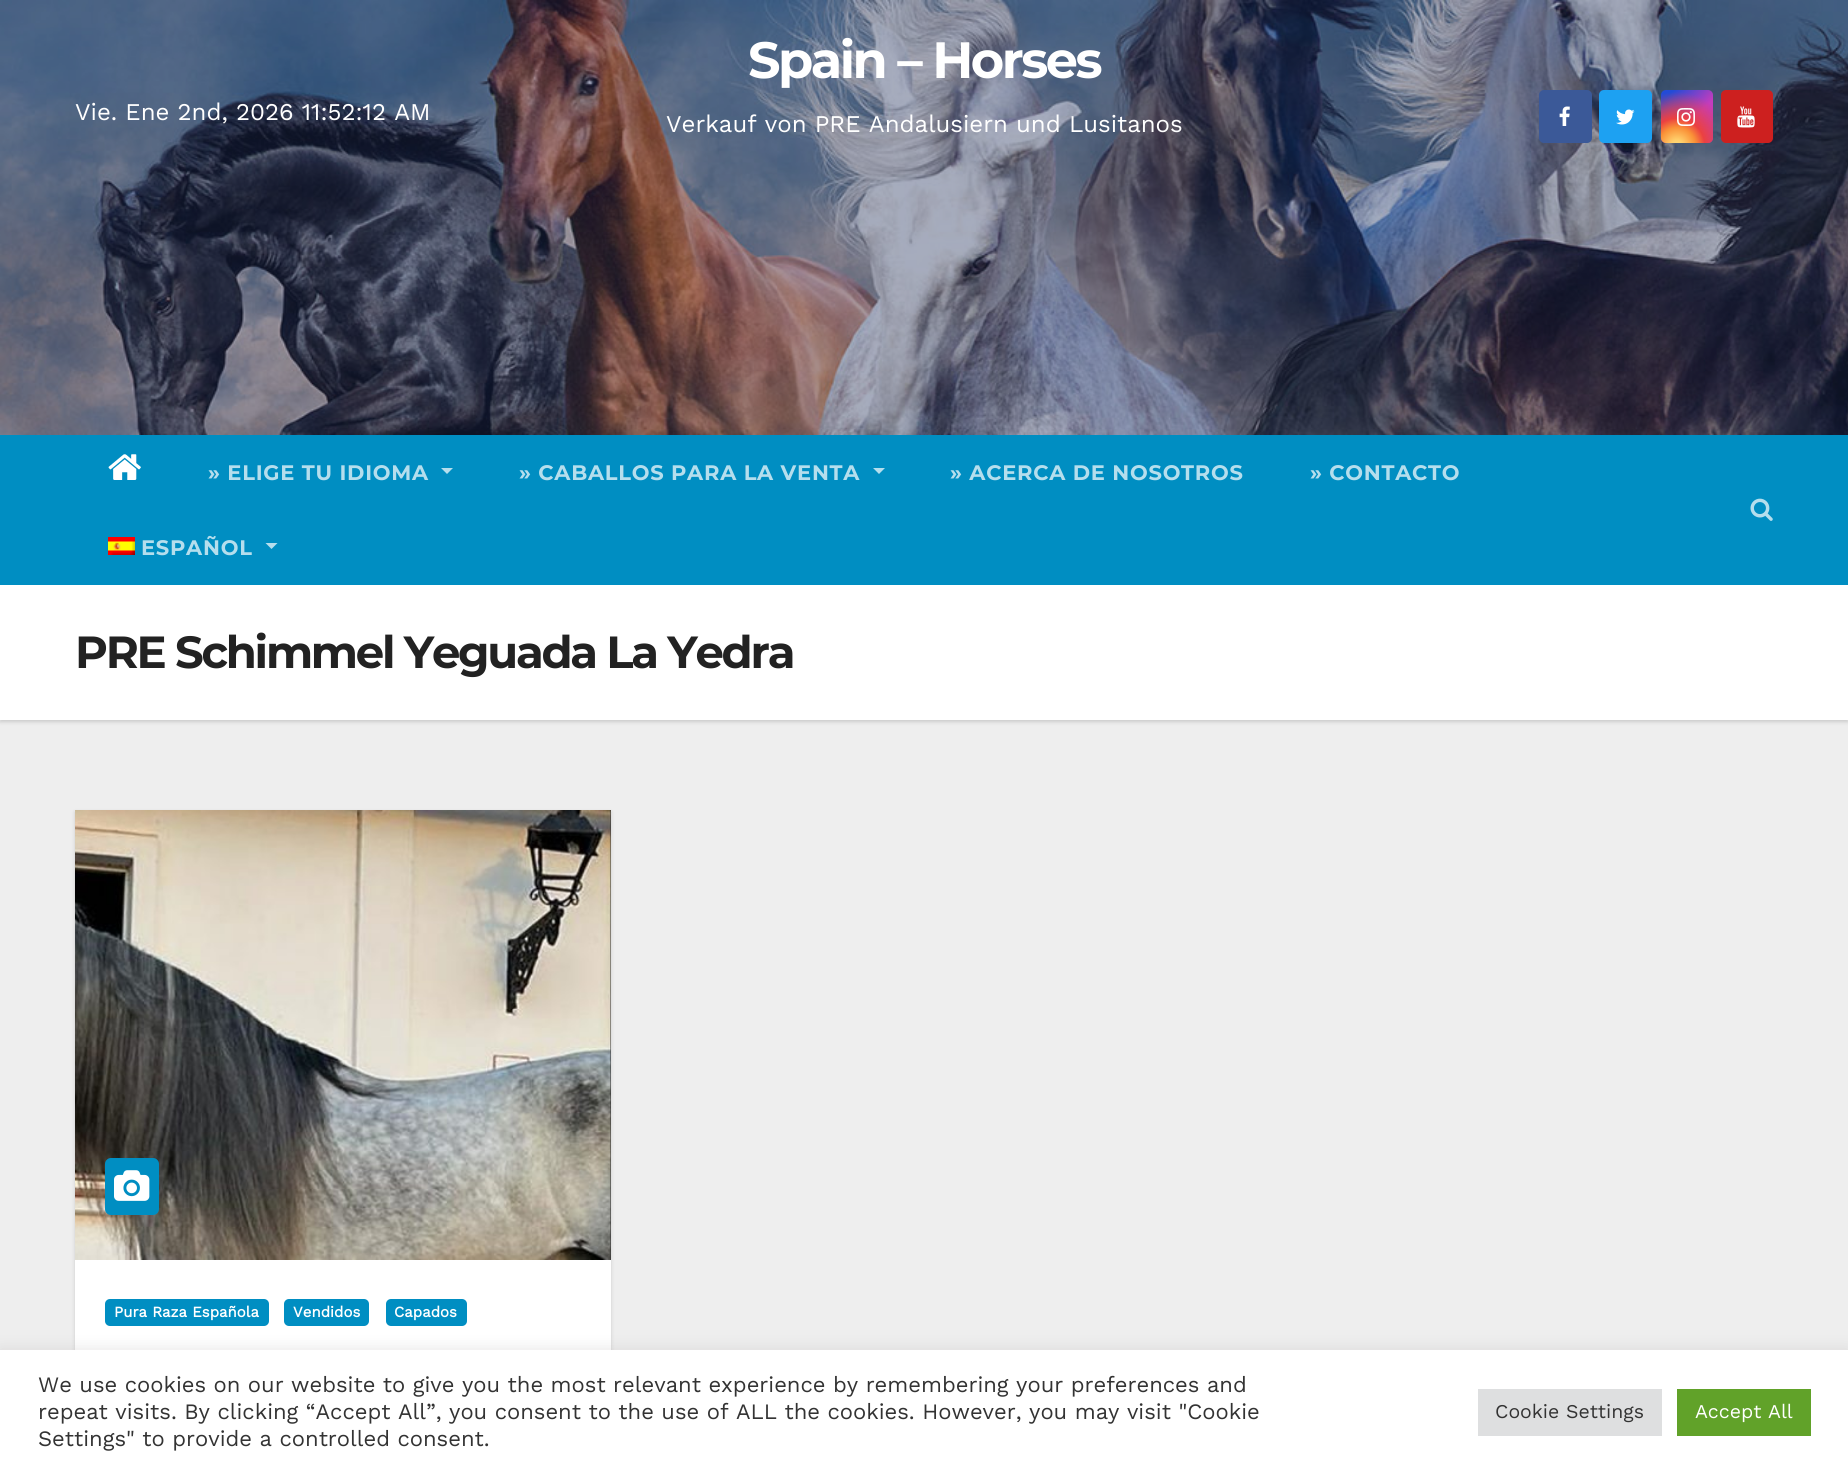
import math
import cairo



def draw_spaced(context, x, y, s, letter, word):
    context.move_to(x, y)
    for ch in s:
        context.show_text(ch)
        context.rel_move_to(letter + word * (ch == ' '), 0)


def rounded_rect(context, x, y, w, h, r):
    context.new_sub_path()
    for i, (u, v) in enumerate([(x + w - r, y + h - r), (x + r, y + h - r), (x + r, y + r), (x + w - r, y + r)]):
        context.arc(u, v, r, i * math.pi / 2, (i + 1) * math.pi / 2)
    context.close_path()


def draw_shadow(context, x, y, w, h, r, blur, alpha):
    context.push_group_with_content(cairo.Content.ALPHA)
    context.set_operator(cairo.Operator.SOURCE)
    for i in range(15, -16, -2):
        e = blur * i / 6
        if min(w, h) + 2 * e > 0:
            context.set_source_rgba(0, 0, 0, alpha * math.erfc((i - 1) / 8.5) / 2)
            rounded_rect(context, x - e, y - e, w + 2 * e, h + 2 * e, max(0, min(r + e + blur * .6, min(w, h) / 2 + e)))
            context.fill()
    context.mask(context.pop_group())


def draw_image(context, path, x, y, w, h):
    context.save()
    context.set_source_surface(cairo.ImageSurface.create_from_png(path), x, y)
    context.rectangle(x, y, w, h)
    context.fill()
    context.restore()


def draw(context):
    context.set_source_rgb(238 / 255, 238 / 255, 238 / 255)
    context.paint()
    draw_image(context, "images/1.png", 0, 0, 1848, 435)
    context.set_source_rgb(59 / 255, 89 / 255, 152 / 255)
    rounded_rect(context, 1539, 90, 53, 53, 5)
    context.fill()
    draw_image(context, "images/2.png", 1559, 106, 11, 20)
    context.set_source_rgb(29 / 255, 161 / 255, 242 / 255)
    rounded_rect(context, 1599, 90, 53, 53, 5)
    context.fill()
    draw_image(context, "images/3.png", 1616, 109, 19, 16)
    gradient = cairo.LinearGradient(1661, 90, 1713, 143)
    gradient.add_color_stop_rgba(0.12, 35 / 255, 75 / 255, 215 / 255, 1)
    gradient.add_color_stop_rgba(0.58, 195 / 255, 60 / 255, 190 / 255, 1)
    context.set_source(gradient)
    rounded_rect(context, 1661, 90, 52, 53, 5)
    context.fill()
    gradient = cairo.RadialGradient(1677, 146, 0, 1677, 146, 66)
    gradient.add_color_stop_rgba(0, 1, 225 / 255, 125 / 255, 1)
    gradient.add_color_stop_rgba(0.1, 1, 205 / 255, 105 / 255, 1)
    gradient.add_color_stop_rgba(0.28, 250 / 255, 145 / 255, 55 / 255, 1)
    gradient.add_color_stop_rgba(0.42, 235 / 255, 65 / 255, 65 / 255, 1)
    gradient.add_color_stop_rgba(0.82, 235 / 255, 65 / 255, 65 / 255, 0)
    context.set_source(gradient)
    rounded_rect(context, 1661, 90, 52, 53, 5)
    context.fill()
    draw_image(context, "images/4.png", 1677, 108, 18, 18)
    context.set_source_rgb(205 / 255, 32 / 255, 31 / 255)
    rounded_rect(context, 1721, 90, 52, 53, 5)
    context.fill()
    draw_image(context, "images/5.png", 1737, 106, 18, 22)
    context.set_source_rgb(0, 0, 0)
    draw_shadow(context, 0, 587, 1848, 135, 0, 2, 0.15)
    context.set_source_rgb(0, 142 / 255, 194 / 255)
    context.rectangle(0, 435, 1848, 150)
    context.fill()
    draw_image(context, "images/6.png", 108, 454, 33, 26)
    context.set_source_rgb(181 / 255, 222 / 255, 237 / 255)
    context.new_path()
    context.move_to(441, 468)
    context.line_to(453, 468)
    context.line_to(447, 474)
    context.close_path()
    context.fill()
    context.new_path()
    context.move_to(873, 468)
    context.line_to(885, 468)
    context.line_to(879, 474)
    context.close_path()
    context.fill()
    draw_image(context, "images/7.png", 108, 537, 27, 18)
    context.new_path()
    context.move_to(265.5, 543)
    context.line_to(277.5, 543)
    context.line_to(271.5, 549)
    context.close_path()
    context.fill()
    draw_image(context, "images/8.png", 1750, 498, 23, 23)
    context.set_source_rgb(1, 1, 1)
    context.rectangle(0, 585, 1848, 135)
    context.fill()
    context.set_source_rgb(0, 0, 0)
    draw_shadow(context, 75, 812, 536, 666, 0, 2, 0.15)
    context.set_source_rgb(1, 1, 1)
    context.rectangle(75, 1260, 536, 90)
    context.fill()
    context.set_source_rgb(51 / 255, 51 / 255, 51 / 255)
    context.rectangle(610, 810, 1, 450)
    context.fill()
    draw_image(context, "images/9.png", 75, 810, 536, 450)
    context.set_source_rgb(0, 142 / 255, 194 / 255)
    rounded_rect(context, 105, 1158, 54, 57, 6)
    context.fill()
    draw_image(context, "images/10.png", 114, 1170, 36, 31)
    rounded_rect(context, 105, 1299, 164, 27, 5)
    context.fill()
    rounded_rect(context, 284, 1299, 85, 27, 5)
    context.fill()
    rounded_rect(context, 386, 1299, 81, 27, 5)
    context.fill()
    context.set_source_rgb(172 / 255, 171 / 255, 171 / 255)
    draw_shadow(context, 0, 1349, 1848, 123, 0, 7.5, 0.3)
    context.set_source_rgb(1, 1, 1)
    context.rectangle(0, 1350, 1848, 122)
    context.fill()
    context.set_source_rgb(222 / 255, 223 / 255, 224 / 255)
    context.rectangle(1478, 1389, 184, 47)
    context.fill()
    context.set_source_rgb(97 / 255, 162 / 255, 41 / 255)
    context.rectangle(1677, 1389, 134, 47)
    context.fill()
    context.select_font_face("Work Sans")
    context.set_font_size(24)
    context.set_source_rgb(1, 1, 1)
    context.move_to(75, 120)
    context.show_text("Vie. Ene 2nd, 2026 11:52:12 AM")
    context.select_font_face("Montserrat", cairo.FontSlant.NORMAL, cairo.FontWeight.BOLD)
    context.set_font_size(51)
    draw_spaced(context, 748, 78, "Spain – Horses", -2.5, 0)
    context.select_font_face("Work Sans")
    context.set_font_size(24)
    context.move_to(666, 132)
    context.show_text("Verkauf von PRE Andalusiern und Lusitanos")
    context.select_font_face("Montserrat", cairo.FontSlant.NORMAL, cairo.FontWeight.BOLD)
    context.set_font_size(21)
    context.set_source_rgb(181 / 255, 222 / 255, 237 / 255)
    draw_spaced(context, 208, 480, "» ELIGE TU IDIOMA", 0.75, 0)
    draw_spaced(context, 519, 480, "» CABALLOS PARA LA VENTA", 0.75, 0)
    draw_spaced(context, 950, 480, "» ACERCA DE NOSOTROS", 0.75, 0)
    draw_spaced(context, 1310, 480, "» CONTACTO", 0.75, 0)
    draw_spaced(context, 141, 555, "ESPAÑOL", 0.75, 0)
    context.set_font_size(45)
    context.set_source_rgb(34 / 255, 34 / 255, 34 / 255)
    draw_spaced(context, 75, 668, "PRE Schimmel Yeguada La Yedra", -2.25, 0)
    context.select_font_face("Work Sans", cairo.FontSlant.NORMAL, cairo.FontWeight.BOLD)
    context.set_font_size(15)
    context.set_source_rgb(1, 1, 1)
    context.move_to(114, 1317)
    context.show_text("Pura Raza Española")
    context.move_to(293, 1317)
    context.show_text("Vendidos")
    context.move_to(394, 1317)
    context.show_text("Capados")
    context.select_font_face("Work Sans")
    context.set_font_size(22)
    context.set_source_rgb(51 / 255, 51 / 255, 51 / 255)
    context.move_to(38, 1392)
    context.show_text("We use cookies on our website to give you the most relevant experience by remembering your preferences and")
    context.move_to(38, 1419)
    context.show_text("repeat visits. By clicking “Accept All”, you consent to the use of ALL the cookies. However, you may visit \"Cookie")
    context.move_to(38, 1446)
    context.show_text("Settings\" to provide a controlled consent.")
    context.set_font_size(19.5)
    context.move_to(1495, 1418)
    context.show_text("Cookie Settings")
    context.set_source_rgb(1, 1, 1)
    context.move_to(1695, 1418)
    context.show_text("Accept All")


surface = cairo.ImageSurface(cairo.Format.RGB24, 1848, 1472)
context = cairo.Context(surface)
options = cairo.FontOptions()
options.set_hint_metrics(cairo.HintMetrics.OFF)
options.set_hint_style(cairo.HintStyle.NONE)
context.set_font_options(options)
context.set_miter_limit(4)
draw(context)
surface.write_to_png("out.png")
